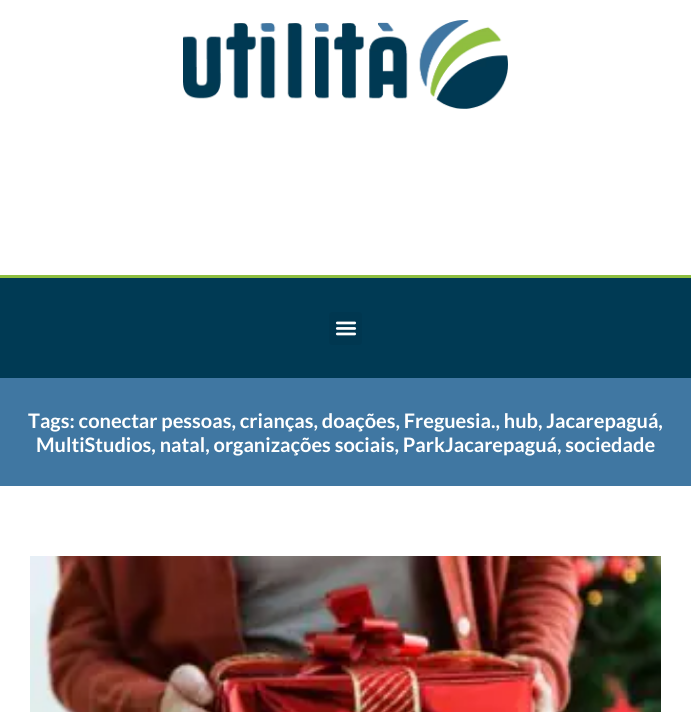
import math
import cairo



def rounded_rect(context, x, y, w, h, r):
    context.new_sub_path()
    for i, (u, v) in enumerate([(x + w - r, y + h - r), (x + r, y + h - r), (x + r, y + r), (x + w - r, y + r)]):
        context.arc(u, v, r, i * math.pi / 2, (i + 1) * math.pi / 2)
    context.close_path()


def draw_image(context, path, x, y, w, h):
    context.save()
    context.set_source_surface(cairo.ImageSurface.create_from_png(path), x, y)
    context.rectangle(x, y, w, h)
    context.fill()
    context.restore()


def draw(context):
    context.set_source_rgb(1, 1, 1)
    context.paint()
    draw_image(context, "images/1.png", 183, 20, 325, 89)
    context.set_source_rgb(0, 58 / 255, 84 / 255)
    context.rectangle(0, 278, 691, 100)
    context.fill()
    context.set_source_rgb(142 / 255, 190 / 255, 63 / 255)
    context.rectangle(0, 275, 691, 3)
    context.fill()
    context.set_source_rgb(0, 55 / 255, 80 / 255)
    rounded_rect(context, 329, 312, 33, 33, 3)
    context.fill()
    draw_image(context, "images/2.png", 335, 321, 22, 15)
    context.set_source_rgb(64 / 255, 119 / 255, 162 / 255)
    context.rectangle(0, 378, 691, 108)
    context.fill()
    draw_image(context, "images/3.png", 30, 556, 631, 156)
    context.select_font_face("Lato", cairo.FontSlant.NORMAL, cairo.FontWeight.BOLD)
    context.set_font_size(20)
    context.set_source_rgb(1, 1, 1)
    context.move_to(28, 428)
    context.show_text("Tags: conectar pessoas, crianças, doações, Freguesia., hub, Jacarepaguá,")
    context.move_to(36, 452)
    context.show_text("MultiStudios, natal, organizações sociais, ParkJacarepaguá, sociedade")


surface = cairo.ImageSurface(cairo.Format.RGB24, 691, 712)
context = cairo.Context(surface)
options = cairo.FontOptions()
options.set_hint_metrics(cairo.HintMetrics.OFF)
options.set_hint_style(cairo.HintStyle.NONE)
context.set_font_options(options)
context.set_miter_limit(4)
draw(context)
surface.write_to_png("out.png")
